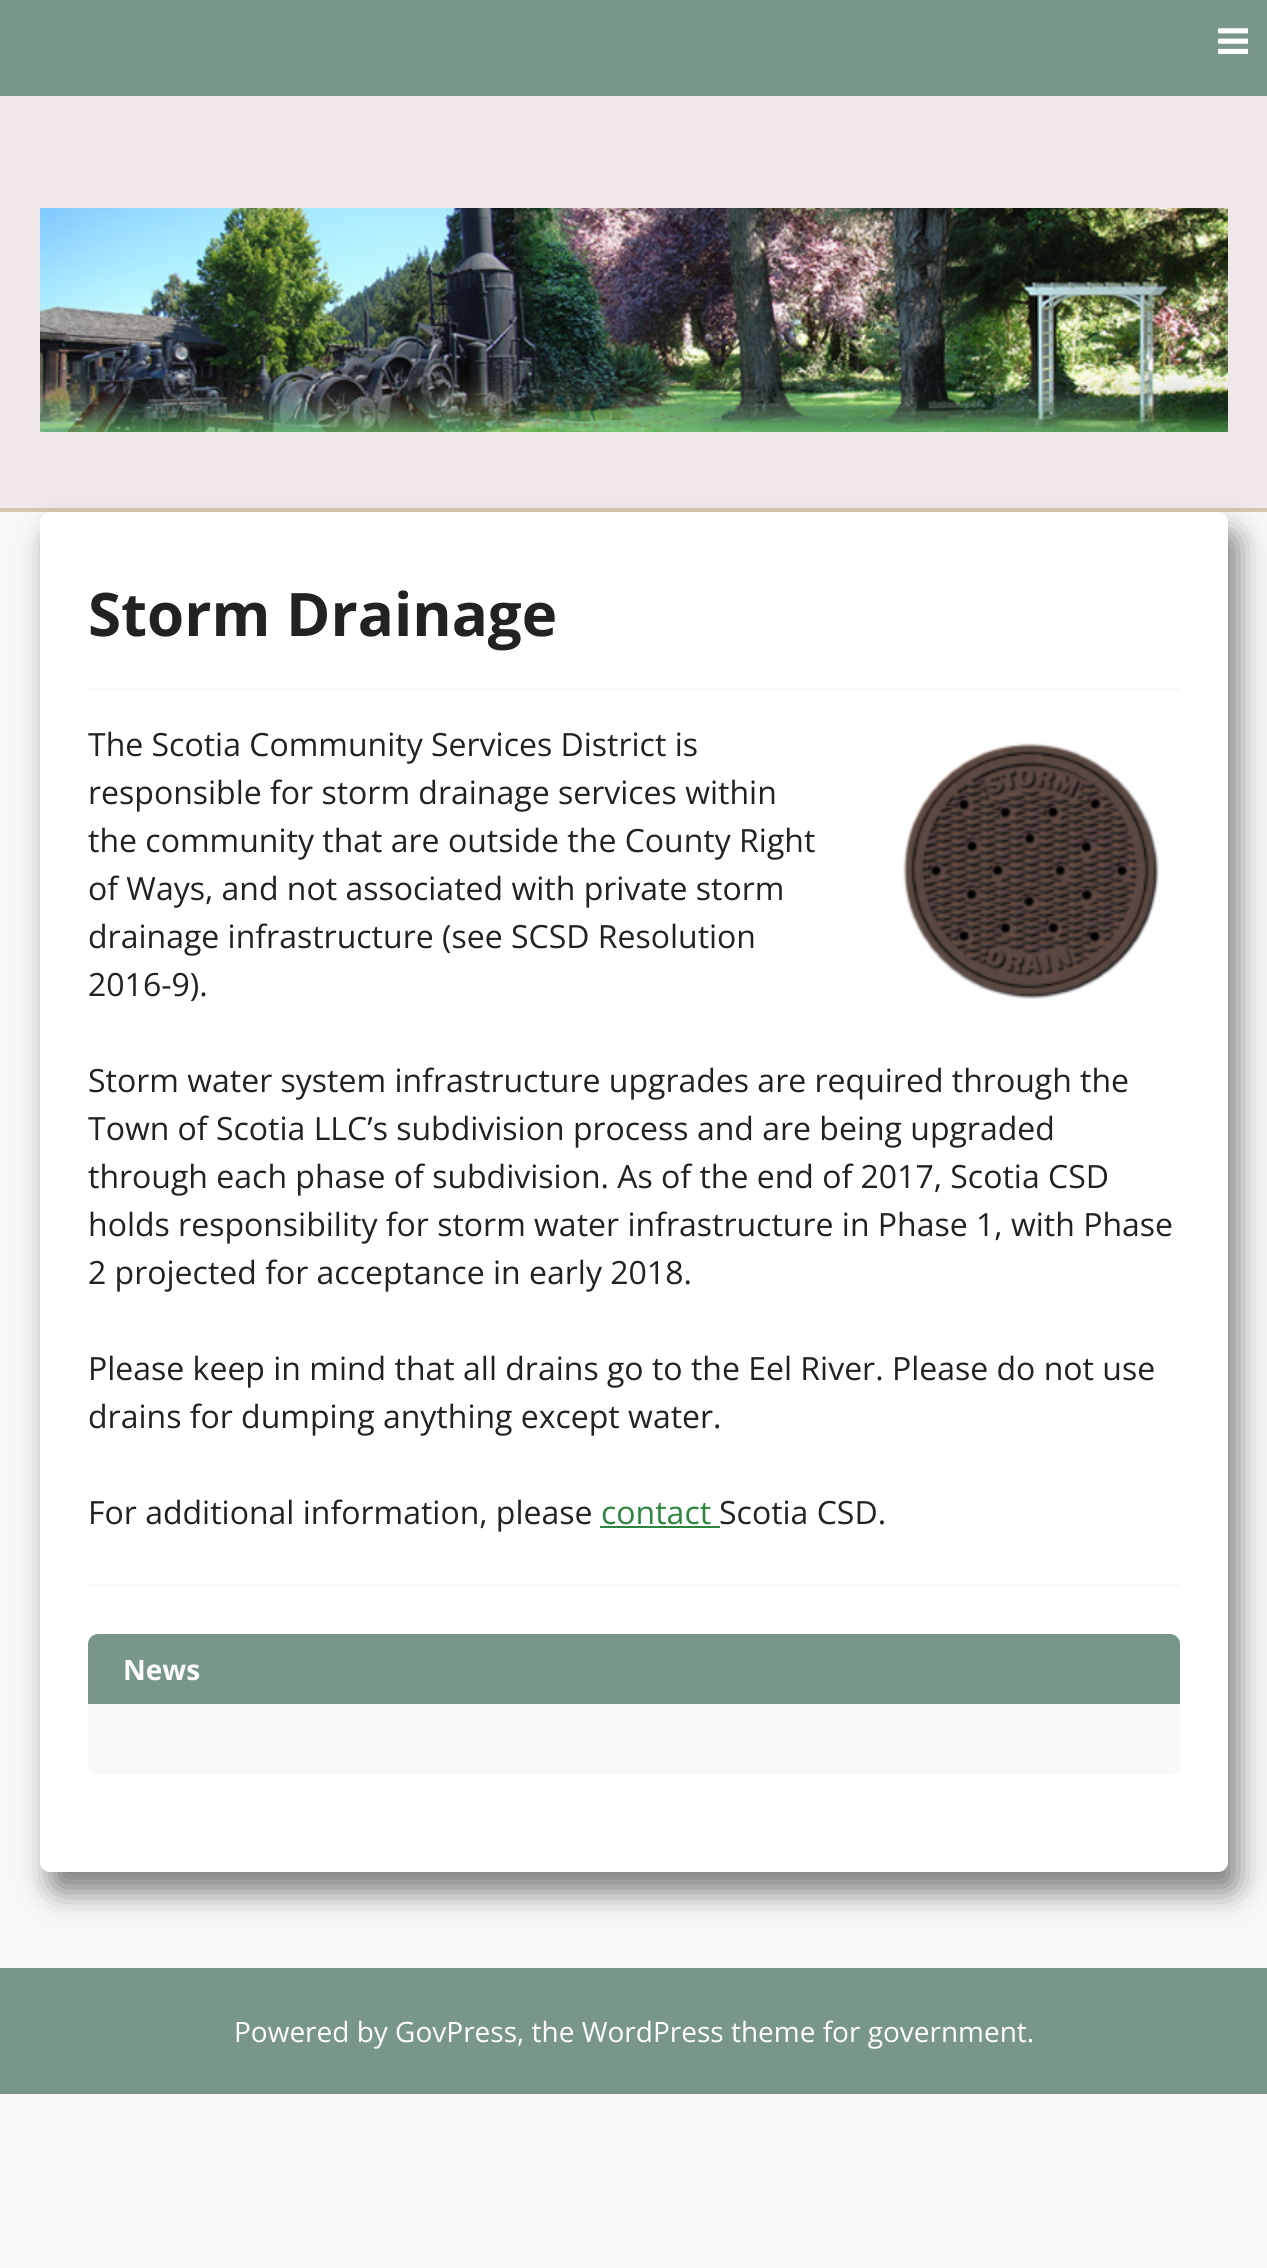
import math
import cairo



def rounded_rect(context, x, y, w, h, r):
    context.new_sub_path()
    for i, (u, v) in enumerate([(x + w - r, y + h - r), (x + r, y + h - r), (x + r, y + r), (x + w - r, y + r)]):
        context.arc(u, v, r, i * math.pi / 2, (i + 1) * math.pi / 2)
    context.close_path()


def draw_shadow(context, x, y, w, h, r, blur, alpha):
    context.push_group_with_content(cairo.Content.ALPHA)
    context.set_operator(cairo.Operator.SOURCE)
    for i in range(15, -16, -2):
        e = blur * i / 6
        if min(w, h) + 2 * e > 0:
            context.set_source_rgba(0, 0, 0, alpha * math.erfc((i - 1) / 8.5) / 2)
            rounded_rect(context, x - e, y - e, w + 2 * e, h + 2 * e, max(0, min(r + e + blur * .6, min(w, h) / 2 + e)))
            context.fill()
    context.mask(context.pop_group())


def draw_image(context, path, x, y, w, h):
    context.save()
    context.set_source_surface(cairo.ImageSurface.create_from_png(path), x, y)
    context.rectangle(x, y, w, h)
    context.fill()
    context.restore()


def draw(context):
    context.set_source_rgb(248 / 255, 248 / 255, 248 / 255)
    context.paint()
    context.set_source_rgb(120 / 255, 151 / 255, 136 / 255)
    context.rectangle(0, 0, 1267, 96)
    context.fill()
    draw_image(context, "images/1.png", 1218, 28, 30, 26)
    context.set_source_rgb(240 / 255, 231 / 255, 234 / 255)
    context.rectangle(0, 96, 1267, 412)
    context.fill()
    context.set_source_rgb(217 / 255, 197 / 255, 172 / 255)
    context.rectangle(0, 508, 1267, 4)
    context.fill()
    draw_image(context, "images/2.png", 40, 208, 1188, 224)
    context.set_source_rgb(128 / 255, 128 / 255, 128 / 255)
    draw_shadow(context, 50, 532, 1188, 1360, 10, 15, 1)
    context.set_source_rgb(1, 1, 1)
    rounded_rect(context, 40, 512, 1188, 1360, 10)
    context.fill()
    context.set_source_rgb(248 / 255, 248 / 255, 248 / 255)
    context.rectangle(88, 688, 1092, 2)
    context.fill()
    context.rectangle(88, 1584, 1092, 2)
    context.fill()
    draw_image(context, "images/3.png", 903, 743, 256, 256)
    context.set_source_rgb(46 / 255, 133 / 255, 64 / 255)
    context.rectangle(600, 1526, 120, 2)
    context.fill()
    context.set_source_rgb(248 / 255, 248 / 255, 248 / 255)
    rounded_rect(context, 88, 1634, 1092, 140, 10)
    context.fill()
    context.set_source_rgb(120 / 255, 151 / 255, 136 / 255)
    context.new_path()
    context.move_to(98, 1634)
    context.line_to(1170, 1634)
    context.curve_to(1175.5, 1634, 1180, 1638.5, 1180, 1644)
    context.line_to(1180, 1704)
    context.line_to(88, 1704)
    context.line_to(88, 1644)
    context.curve_to(88, 1638.5, 92.5, 1634, 98, 1634)
    context.close_path()
    context.fill()
    context.rectangle(0, 1968, 1267, 126)
    context.fill()
    context.select_font_face("Open Sans", cairo.FontSlant.NORMAL, cairo.FontWeight.BOLD)
    context.set_font_size(60)
    context.set_source_rgb(34 / 255, 34 / 255, 34 / 255)
    context.move_to(88, 636)
    context.show_text("Storm Drainage")
    context.select_font_face("Open Sans")
    context.set_font_size(32)
    context.move_to(88, 756)
    context.show_text("The Scotia Community Services District is")
    context.move_to(88, 804)
    context.show_text("responsible for storm drainage services within")
    context.move_to(88, 852)
    context.show_text("the community that are outside the County Right")
    context.move_to(88, 900)
    context.show_text("of Ways, and not associated with private storm")
    context.move_to(88, 948)
    context.show_text("drainage infrastructure (see SCSD Resolution")
    context.move_to(88, 996)
    context.show_text("2016-9).")
    context.move_to(88, 1092)
    context.show_text("Storm water system infrastructure upgrades are required through the")
    context.move_to(88, 1140)
    context.show_text("Town of Scotia LLC’s subdivision process and are being upgraded")
    context.move_to(88, 1188)
    context.show_text("through each phase of subdivision. As of the end of 2017, Scotia CSD")
    context.move_to(88, 1236)
    context.show_text("holds responsibility for storm water infrastructure in Phase 1, with Phase")
    context.move_to(88, 1284)
    context.show_text("2 projected for acceptance in early 2018.")
    context.move_to(88, 1380)
    context.show_text("Please keep in mind that all drains go to the Eel River. Please do not use")
    context.move_to(88, 1428)
    context.show_text("drains for dumping anything except water.")
    context.move_to(88, 1524)
    context.show_text("For additional information, please")
    context.set_source_rgb(46 / 255, 133 / 255, 64 / 255)
    context.move_to(601, 1524)
    context.show_text("contact")
    context.set_source_rgb(34 / 255, 34 / 255, 34 / 255)
    context.move_to(719, 1524)
    context.show_text("Scotia CSD.")
    context.select_font_face("Open Sans", cairo.FontSlant.NORMAL, cairo.FontWeight.BOLD)
    context.set_font_size(28)
    context.set_source_rgb(1, 1, 1)
    context.move_to(123, 1680)
    context.show_text("News")
    context.select_font_face("Open Sans")
    context.move_to(234, 2042)
    context.show_text("Powered by GovPress, the WordPress theme for government.")


surface = cairo.ImageSurface(cairo.Format.RGB24, 1267, 2268)
context = cairo.Context(surface)
options = cairo.FontOptions()
options.set_hint_metrics(cairo.HintMetrics.OFF)
options.set_hint_style(cairo.HintStyle.NONE)
context.set_font_options(options)
context.set_miter_limit(4)
draw(context)
surface.write_to_png("out.png")
